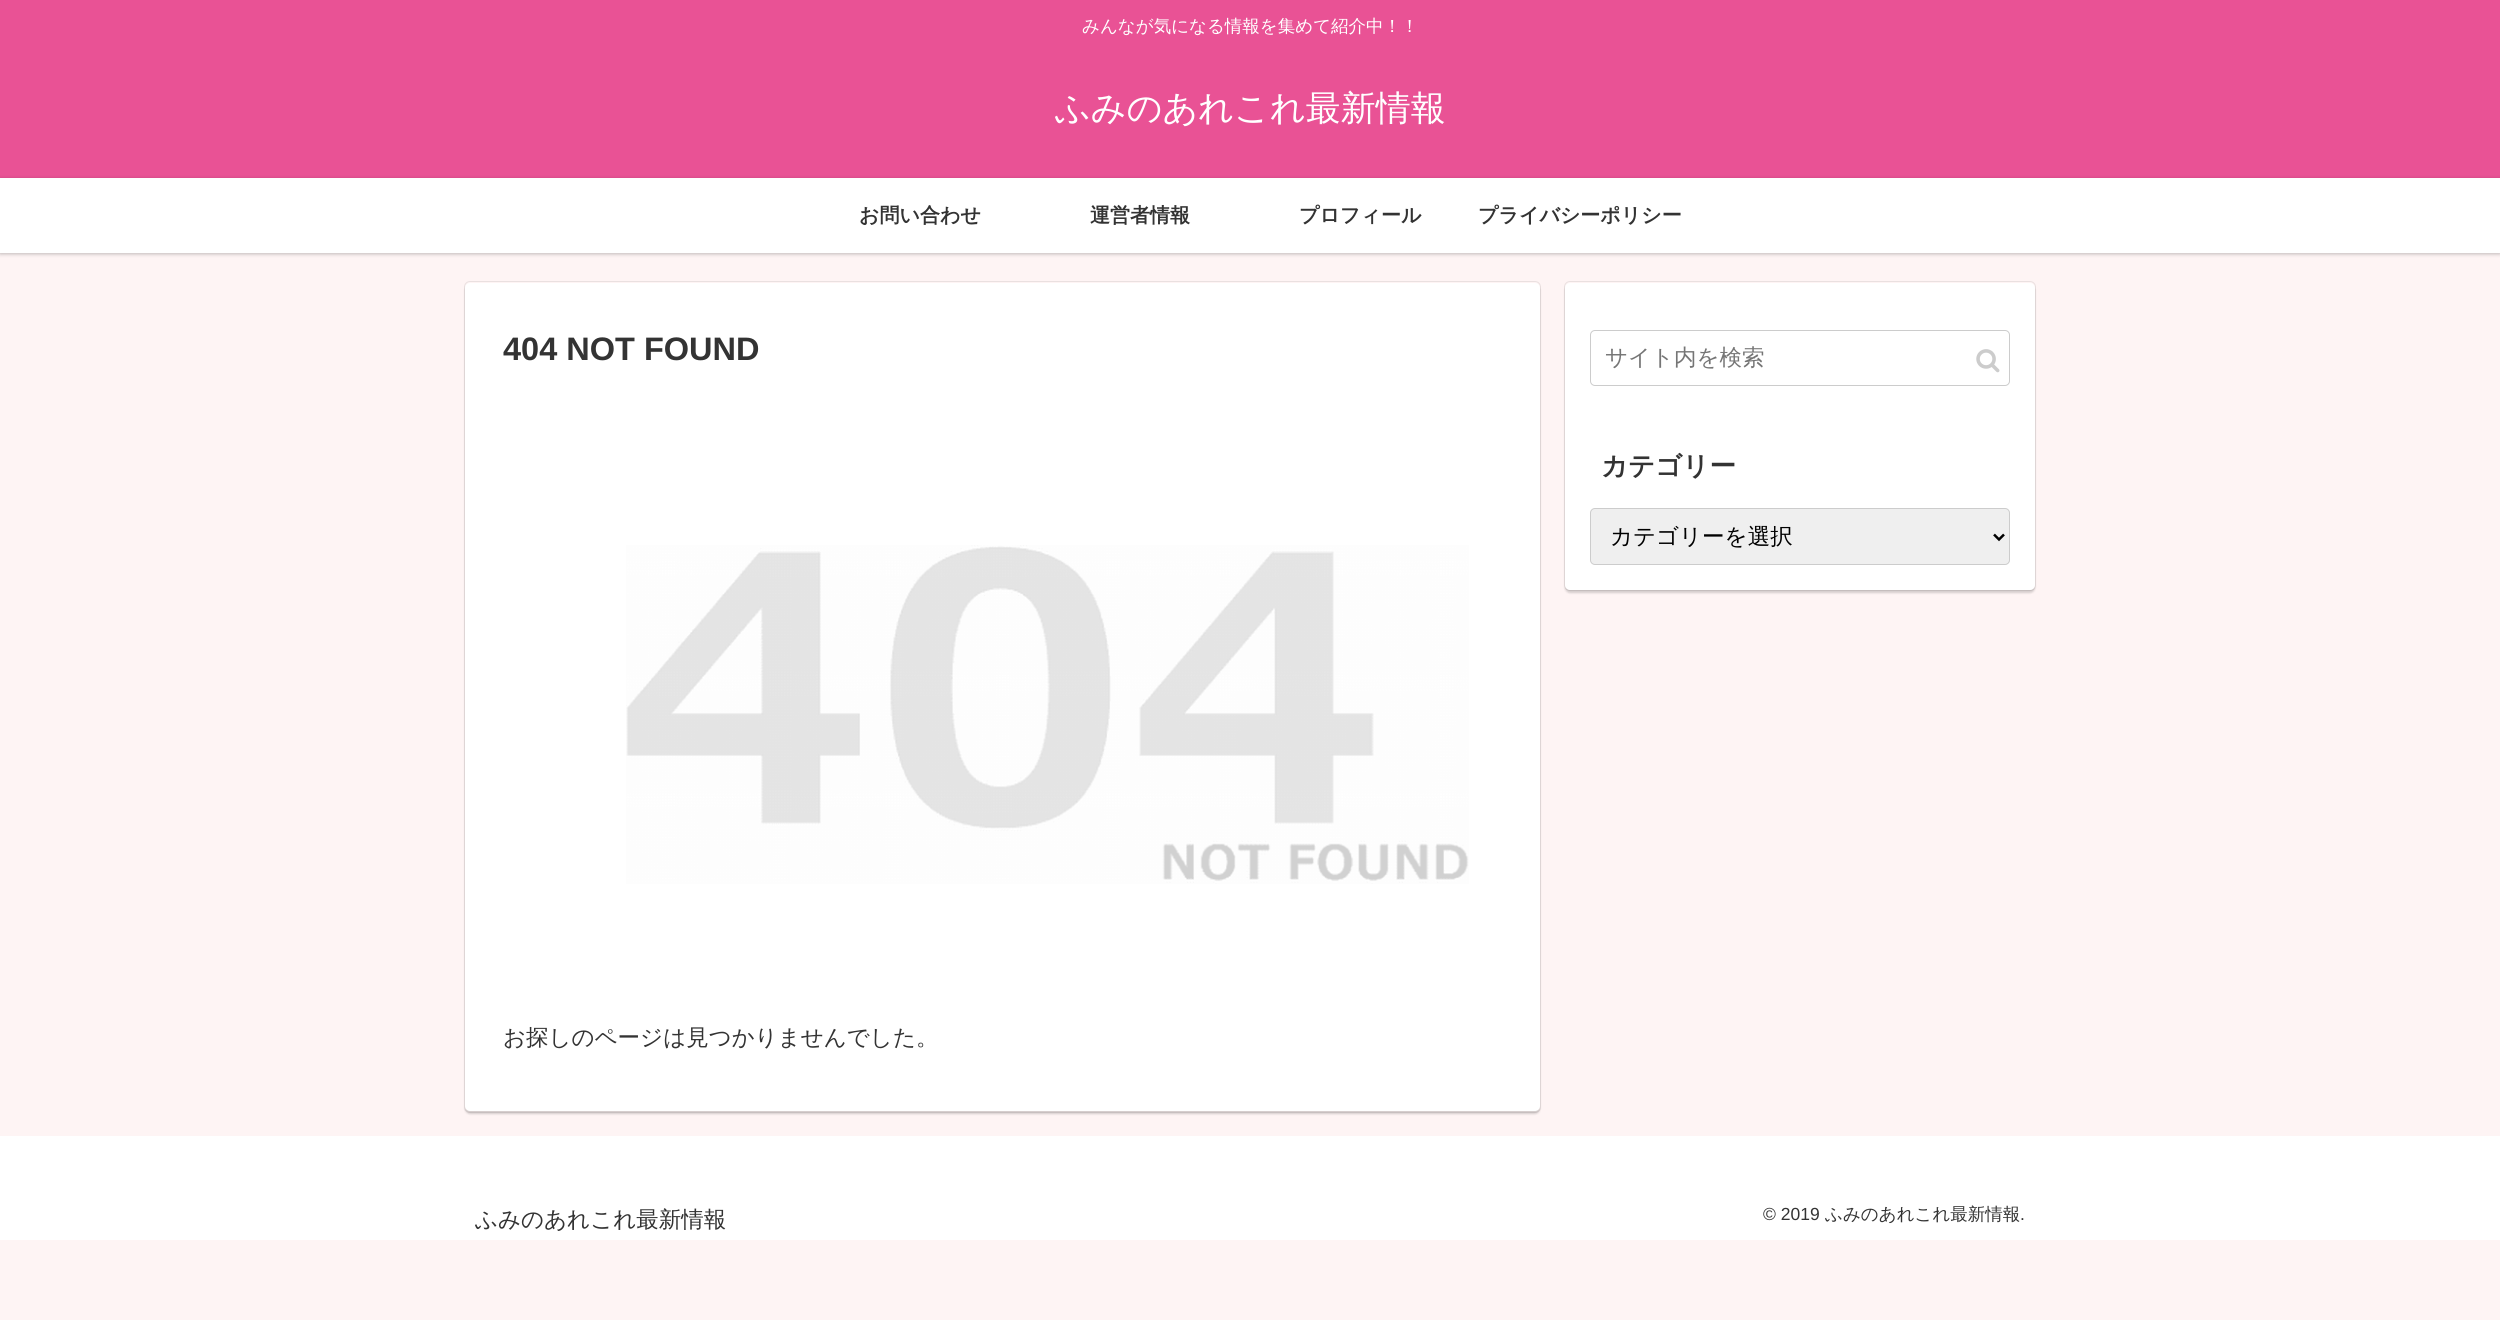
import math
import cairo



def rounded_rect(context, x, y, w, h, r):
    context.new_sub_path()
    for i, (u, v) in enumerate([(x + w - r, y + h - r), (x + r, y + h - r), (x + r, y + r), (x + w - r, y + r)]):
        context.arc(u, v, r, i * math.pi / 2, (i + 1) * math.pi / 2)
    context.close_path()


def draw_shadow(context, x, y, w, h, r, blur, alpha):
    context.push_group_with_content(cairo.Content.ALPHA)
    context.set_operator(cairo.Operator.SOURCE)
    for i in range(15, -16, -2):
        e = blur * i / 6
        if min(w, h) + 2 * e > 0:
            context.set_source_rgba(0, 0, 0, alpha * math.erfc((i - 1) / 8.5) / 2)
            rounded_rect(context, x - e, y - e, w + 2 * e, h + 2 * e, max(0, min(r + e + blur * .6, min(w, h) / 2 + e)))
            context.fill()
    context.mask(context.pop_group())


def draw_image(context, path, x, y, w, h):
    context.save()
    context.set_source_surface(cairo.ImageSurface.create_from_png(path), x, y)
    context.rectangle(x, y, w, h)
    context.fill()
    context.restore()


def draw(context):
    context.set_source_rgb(254 / 255, 244 / 255, 244 / 255)
    context.paint()
    context.set_source_rgb(233 / 255, 82 / 255, 149 / 255)
    context.rectangle(0, 0, 2500, 178)
    context.fill()
    context.set_source_rgb(0, 0, 0)
    draw_shadow(context, 0, 179, 2500, 75, 0, 2, 0.25)
    context.set_source_rgb(1, 1, 1)
    context.rectangle(0, 178, 2500, 75)
    context.fill()
    rounded_rect(context, 464.5, 281.5, 1076, 831, 5.5)
    context.set_source_rgb(234 / 255, 224 / 255, 224 / 255)
    context.set_line_width(1)
    context.stroke()
    context.set_source_rgb(0, 0, 0)
    draw_shadow(context, 465, 285, 1075, 829, 5, 1, 0.16)
    context.set_source_rgb(1, 1, 1)
    rounded_rect(context, 465, 283, 1075, 828, 5)
    context.fill()
    draw_image(context, "images/1.png", 626, 545, 843, 339)
    rounded_rect(context, 1564.5, 281.5, 471, 309, 5.5)
    context.set_source_rgb(234 / 255, 224 / 255, 224 / 255)
    context.stroke()
    context.set_source_rgb(0, 0, 0)
    draw_shadow(context, 1565, 285, 470, 308, 5, 1, 0.16)
    context.set_source_rgb(1, 1, 1)
    rounded_rect(context, 1565, 283, 470, 307, 5)
    context.fill()
    rounded_rect(context, 1590.5, 330.5, 419, 55, 4.5)
    context.set_source_rgb(204 / 255, 204 / 255, 204 / 255)
    context.stroke()
    draw_image(context, "images/2.png", 1976, 349, 24, 24)
    context.set_source_rgb(239 / 255, 239 / 255, 239 / 255)
    rounded_rect(context, 1590.5, 508.5, 419, 56, 4.5)
    context.fill_preserve()
    context.set_source_rgb(204 / 255, 204 / 255, 204 / 255)
    context.stroke()
    context.new_path()
    context.move_to(1994, 534.5)
    context.line_to(1999, 539.5)
    context.line_to(2004, 534.5)
    context.set_source_rgb(0, 0, 0)
    context.set_line_width(2.5)
    context.stroke()
    context.set_source_rgb(1, 1, 1)
    context.rectangle(0, 1136, 2500, 104)
    context.fill()
    context.select_font_face("WenQuanYi Zen Hei Medium")
    context.set_font_size(17.5)
    context.move_to(1082, 32)
    context.show_text("みんなが気になる情報を集めて紹介中！！")
    context.set_font_size(35)
    context.move_to(1055, 120)
    context.show_text("ふみのあれこれ最新情報")
    context.select_font_face("WenQuanYi Zen Hei", cairo.FontSlant.NORMAL, cairo.FontWeight.BOLD)
    context.set_font_size(20)
    context.set_source_rgb(51 / 255, 51 / 255, 51 / 255)
    context.move_to(859, 222)
    context.show_text("お問い合わせ")
    context.move_to(1090, 222)
    context.show_text("運営者情報")
    context.move_to(1299, 222)
    context.show_text("プロフィール")
    context.move_to(1478, 222)
    context.show_text("プライバシーポリシー")
    context.select_font_face("Liberation Sans", cairo.FontSlant.NORMAL, cairo.FontWeight.BOLD)
    context.set_font_size(32.5)
    context.move_to(503, 360)
    context.show_text("404 NOT FOUND")
    context.select_font_face("WenQuanYi Zen Hei Medium")
    context.set_font_size(22.5)
    context.move_to(503, 1045)
    context.show_text("お探しのページは見つかりませんでした。")
    context.set_source_rgb(117 / 255, 117 / 255, 117 / 255)
    context.move_to(1605, 365)
    context.show_text("サイト内を検索")
    context.select_font_face("WenQuanYi Zen Hei", cairo.FontSlant.NORMAL, cairo.FontWeight.BOLD)
    context.set_font_size(26.5)
    context.set_source_rgb(51 / 255, 51 / 255, 51 / 255)
    context.move_to(1601, 475)
    context.show_text("カテゴリー")
    context.select_font_face("WenQuanYi Zen Hei Medium")
    context.set_font_size(22.5)
    context.set_source_rgb(0, 0, 0)
    context.move_to(1610, 544)
    context.show_text("カテゴリーを選択")
    context.set_source_rgb(51 / 255, 51 / 255, 51 / 255)
    context.move_to(475, 1227)
    context.show_text("ふみのあれこれ最新情報")
    context.select_font_face("Liberation Sans")
    context.set_font_size(17.5)
    context.move_to(1763, 1220)
    context.show_text("© 2019")
    context.select_font_face("WenQuanYi Zen Hei Medium")
    context.move_to(1825, 1220)
    context.show_text("ふみのあれこれ最新情報")
    context.select_font_face("Liberation Sans")
    context.move_to(2020, 1220)
    context.show_text(".")


surface = cairo.ImageSurface(cairo.Format.RGB24, 2500, 1320)
context = cairo.Context(surface)
options = cairo.FontOptions()
options.set_hint_metrics(cairo.HintMetrics.OFF)
options.set_hint_style(cairo.HintStyle.NONE)
context.set_font_options(options)
context.set_miter_limit(4)
draw(context)
surface.write_to_png("out.png")
